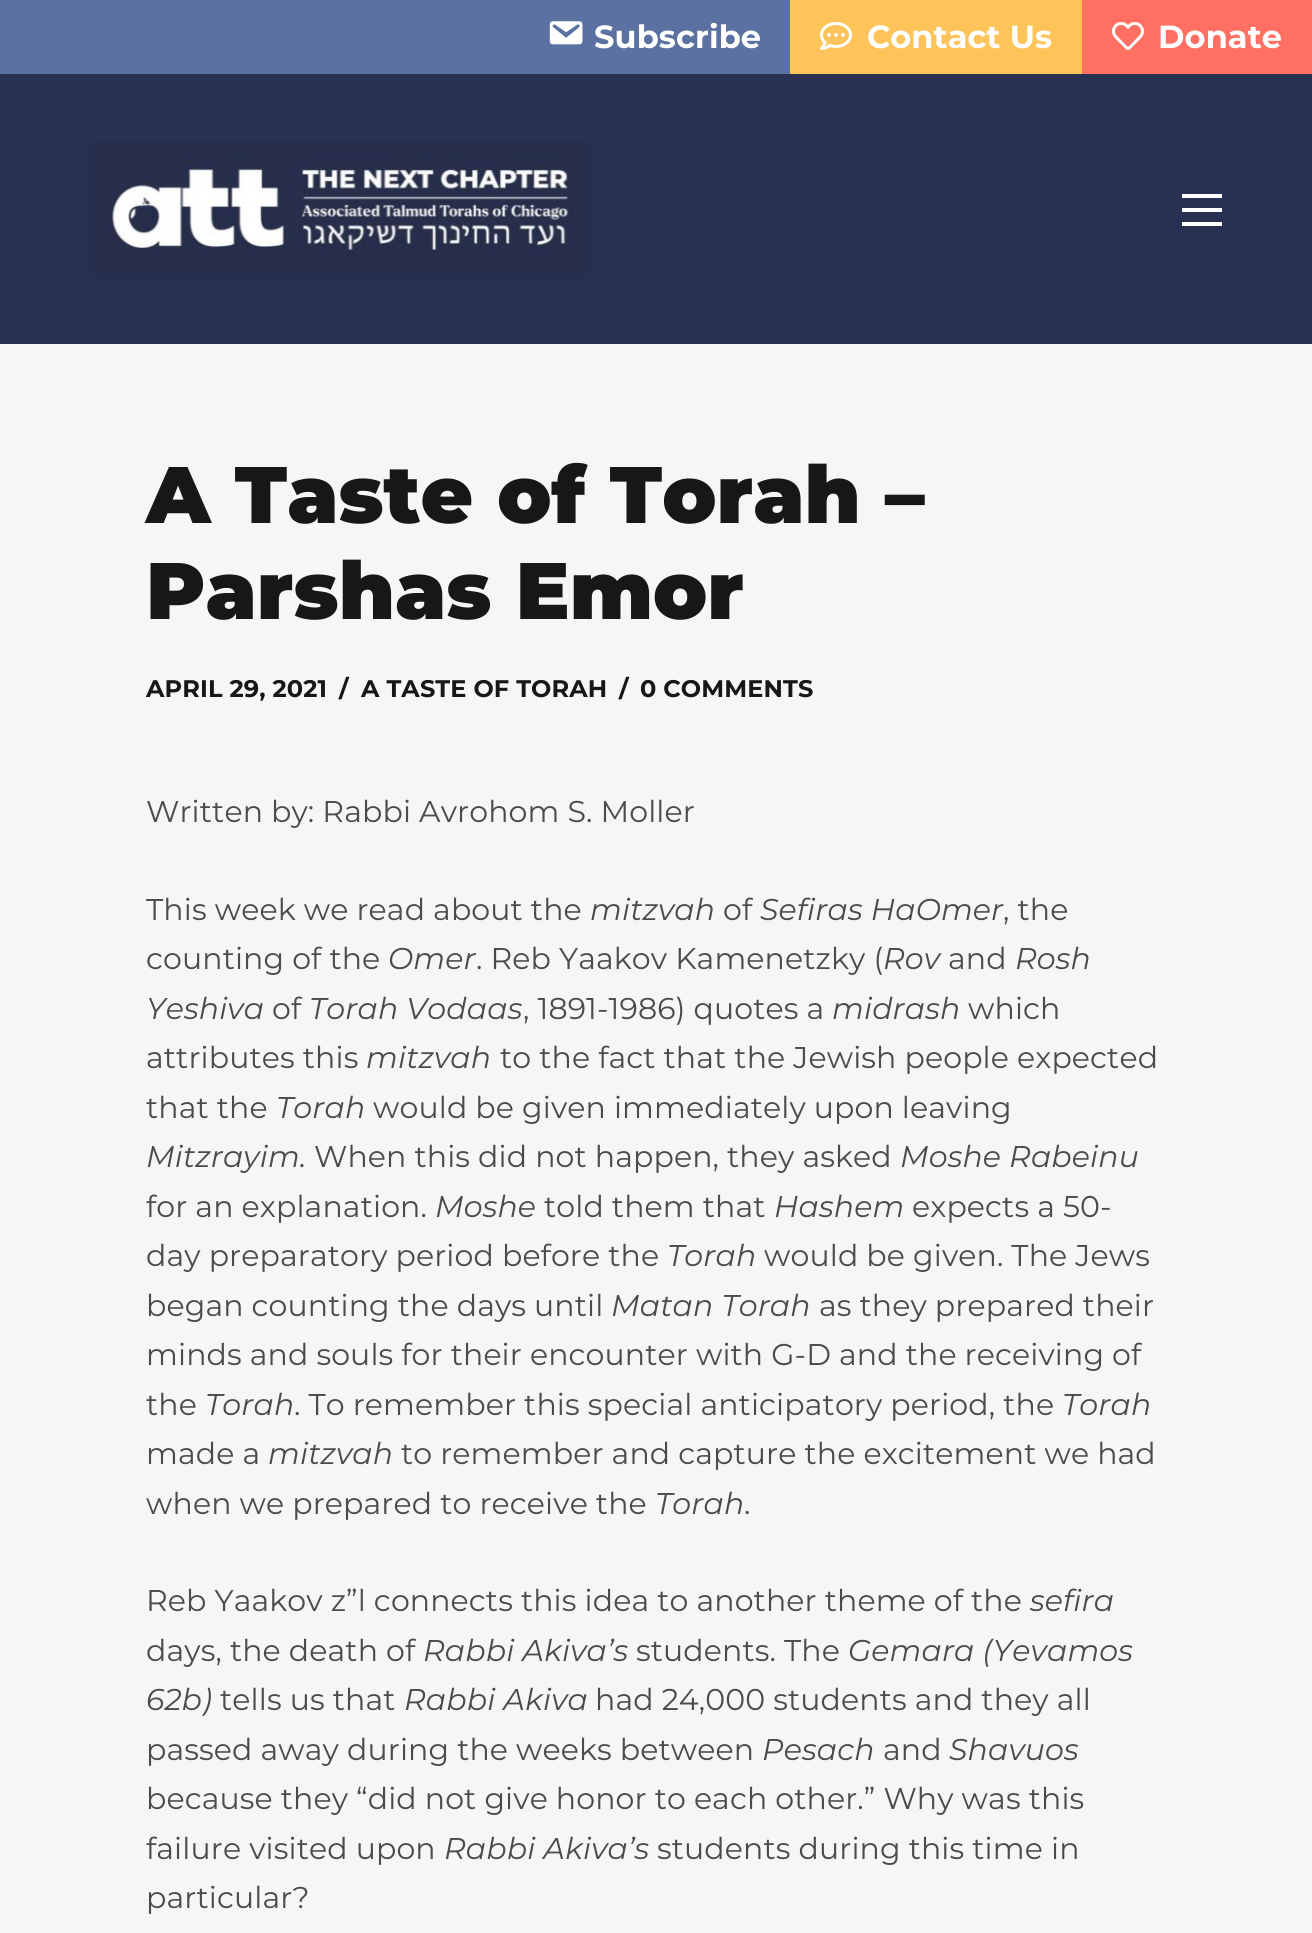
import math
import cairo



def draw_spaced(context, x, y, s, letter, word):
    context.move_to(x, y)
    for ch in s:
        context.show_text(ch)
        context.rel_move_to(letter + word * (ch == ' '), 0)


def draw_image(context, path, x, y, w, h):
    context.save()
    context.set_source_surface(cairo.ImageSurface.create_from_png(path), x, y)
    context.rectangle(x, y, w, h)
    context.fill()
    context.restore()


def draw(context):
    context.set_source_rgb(246 / 255, 246 / 255, 246 / 255)
    context.paint()
    context.set_source_rgb(91 / 255, 113 / 255, 161 / 255)
    context.rectangle(0, 0, 790, 74)
    context.fill()
    draw_image(context, "images/1.png", 549, 21, 34, 24)
    context.set_source_rgb(254 / 255, 196 / 255, 90 / 255)
    context.rectangle(790, 0, 292, 74)
    context.fill()
    draw_image(context, "images/2.png", 820, 22, 32, 28)
    context.set_source_rgb(1, 112 / 255, 98 / 255)
    context.rectangle(1082, 0, 230, 74)
    context.fill()
    draw_image(context, "images/3.png", 1112, 22, 32, 28)
    context.set_source_rgb(40 / 255, 49 / 255, 82 / 255)
    context.rectangle(0, 74, 1312, 270)
    context.fill()
    draw_image(context, "images/4.png", 90, 140, 500, 138)
    context.set_source_rgb(1, 1, 1)
    context.rectangle(1182, 194, 40, 4)
    context.fill()
    context.rectangle(1182, 208, 40, 4)
    context.fill()
    context.rectangle(1182, 222, 40, 4)
    context.fill()
    context.select_font_face("Montserrat", cairo.FontSlant.NORMAL, cairo.FontWeight.BOLD)
    context.set_font_size(32)
    draw_spaced(context, 594, 48, "Subscribe", 0.12, 0)
    draw_spaced(context, 867, 48, "Contact Us", 0.12, 0)
    draw_spaced(context, 1158, 48, "Donate", 0.12, 0)
    context.select_font_face("Montserrat Black")
    context.set_font_size(80)
    context.set_source_rgb(23 / 255, 23 / 255, 23 / 255)
    draw_spaced(context, 146, 523, "A Taste of Torah –", 0.12, 0)
    draw_spaced(context, 146, 619, "Parshas Emor", 0.12, 0)
    context.select_font_face("Montserrat", cairo.FontSlant.NORMAL, cairo.FontWeight.BOLD)
    context.set_font_size(24)
    draw_spaced(context, 146, 697, "APRIL 29, 2021", 0.12, 0)
    draw_spaced(context, 339, 697, "/", 0.12, 0)
    draw_spaced(context, 361, 697, "A TASTE OF TORAH", 0.12, 0)
    draw_spaced(context, 619, 697, "/", 0.12, 0)
    draw_spaced(context, 640, 697, "0 COMMENTS", 0.12, 0)
    context.select_font_face("Montserrat")
    context.set_font_size(30)
    context.set_source_rgb(75 / 255, 75 / 255, 75 / 255)
    draw_spaced(context, 146, 822, "Written by: Rabbi Avrohom S. Moller", 0.12, 0)
    draw_spaced(context, 146, 920, "This week we read about the", 0.12, 0)
    context.select_font_face("Montserrat", cairo.FontSlant.ITALIC)
    draw_spaced(context, 590, 920, "mitzvah", 0.12, 0)
    context.select_font_face("Montserrat")
    draw_spaced(context, 723, 920, "of", 0.12, 0)
    context.select_font_face("Montserrat", cairo.FontSlant.ITALIC)
    draw_spaced(context, 760, 920, "Sefiras HaOmer", 0.12, 0)
    context.select_font_face("Montserrat")
    draw_spaced(context, 1003, 920, ", the", 0.12, 0)
    draw_spaced(context, 146, 969, "counting of the", 0.12, 0)
    context.select_font_face("Montserrat", cairo.FontSlant.ITALIC)
    draw_spaced(context, 388, 969, "Omer", 0.12, 0)
    context.select_font_face("Montserrat")
    draw_spaced(context, 476, 969, ". Reb Yaakov Kamenetzky (", 0.12, 0)
    context.select_font_face("Montserrat", cairo.FontSlant.ITALIC)
    draw_spaced(context, 883, 969, "Rov", 0.12, 0)
    context.select_font_face("Montserrat")
    draw_spaced(context, 948, 969, "and", 0.12, 0)
    context.select_font_face("Montserrat", cairo.FontSlant.ITALIC)
    draw_spaced(context, 1015, 969, "Rosh", 0.12, 0)
    draw_spaced(context, 146, 1019, "Yeshiva", 0.12, 0)
    context.select_font_face("Montserrat")
    draw_spaced(context, 272, 1019, "of", 0.12, 0)
    context.select_font_face("Montserrat", cairo.FontSlant.ITALIC)
    draw_spaced(context, 309, 1019, "Torah Vodaas", 0.12, 0)
    context.select_font_face("Montserrat")
    draw_spaced(context, 523, 1019, ", 1891-1986) quotes a", 0.12, 0)
    context.select_font_face("Montserrat", cairo.FontSlant.ITALIC)
    draw_spaced(context, 832, 1019, "midrash", 0.12, 0)
    context.select_font_face("Montserrat")
    draw_spaced(context, 968, 1019, "which", 0.12, 0)
    draw_spaced(context, 146, 1068, "attributes this", 0.12, 0)
    context.select_font_face("Montserrat", cairo.FontSlant.ITALIC)
    draw_spaced(context, 366, 1068, "mitzvah", 0.12, 0)
    context.select_font_face("Montserrat")
    draw_spaced(context, 500, 1068, "to the fact that the Jewish people expected", 0.12, 0)
    draw_spaced(context, 146, 1118, "that the", 0.12, 0)
    context.select_font_face("Montserrat", cairo.FontSlant.ITALIC)
    draw_spaced(context, 276, 1118, "Torah", 0.12, 0)
    context.select_font_face("Montserrat")
    draw_spaced(context, 373, 1118, "would be given immediately upon leaving", 0.12, 0)
    context.select_font_face("Montserrat", cairo.FontSlant.ITALIC)
    draw_spaced(context, 146, 1167, "Mitzrayim.", 0.12, 0)
    context.select_font_face("Montserrat")
    draw_spaced(context, 314, 1167, "When this did not happen, they asked", 0.12, 0)
    context.select_font_face("Montserrat", cairo.FontSlant.ITALIC)
    draw_spaced(context, 900, 1167, "Moshe Rabeinu", 0.12, 0)
    context.select_font_face("Montserrat")
    draw_spaced(context, 146, 1217, "for an explanation.", 0.12, 0)
    context.select_font_face("Montserrat", cairo.FontSlant.ITALIC)
    draw_spaced(context, 435, 1217, "Moshe", 0.12, 0)
    context.select_font_face("Montserrat")
    draw_spaced(context, 544, 1217, "told them that", 0.12, 0)
    context.select_font_face("Montserrat", cairo.FontSlant.ITALIC)
    draw_spaced(context, 774, 1217, "Hashem", 0.12, 0)
    context.select_font_face("Montserrat")
    draw_spaced(context, 912, 1217, "expects a 50-", 0.12, 0)
    draw_spaced(context, 146, 1266, "day preparatory period before the", 0.12, 0)
    context.select_font_face("Montserrat", cairo.FontSlant.ITALIC)
    draw_spaced(context, 667, 1266, "Torah", 0.12, 0)
    context.select_font_face("Montserrat")
    draw_spaced(context, 764, 1266, "would be given. The Jews", 0.12, 0)
    draw_spaced(context, 146, 1316, "began counting the days until", 0.12, 0)
    context.select_font_face("Montserrat", cairo.FontSlant.ITALIC)
    draw_spaced(context, 611, 1316, "Matan Torah", 0.12, 0)
    context.select_font_face("Montserrat")
    draw_spaced(context, 819, 1316, "as they prepared their", 0.12, 0)
    draw_spaced(context, 146, 1365, "minds and souls for their encounter with G-D and the receiving of", 0.12, 0)
    draw_spaced(context, 146, 1415, "the", 0.12, 0)
    context.select_font_face("Montserrat", cairo.FontSlant.ITALIC)
    draw_spaced(context, 205, 1415, "Torah", 0.12, 0)
    context.select_font_face("Montserrat")
    draw_spaced(context, 294, 1415, ". To remember this special anticipatory period, the", 0.12, 0)
    context.select_font_face("Montserrat", cairo.FontSlant.ITALIC)
    draw_spaced(context, 1062, 1415, "Torah", 0.12, 0)
    context.select_font_face("Montserrat")
    draw_spaced(context, 146, 1464, "made a", 0.12, 0)
    context.select_font_face("Montserrat", cairo.FontSlant.ITALIC)
    draw_spaced(context, 268, 1464, "mitzvah", 0.12, 0)
    context.select_font_face("Montserrat")
    draw_spaced(context, 401, 1464, "to remember and capture the excitement we had", 0.12, 0)
    draw_spaced(context, 146, 1514, "when we prepared to receive the", 0.12, 0)
    context.select_font_face("Montserrat", cairo.FontSlant.ITALIC)
    draw_spaced(context, 655, 1514, "Torah", 0.12, 0)
    context.select_font_face("Montserrat")
    draw_spaced(context, 744, 1514, ".", 0.12, 0)
    draw_spaced(context, 146, 1611, "Reb Yaakov z”l connects this idea to another theme of the", 0.12, 0)
    context.select_font_face("Montserrat", cairo.FontSlant.ITALIC)
    draw_spaced(context, 1030, 1611, "sefira", 0.12, 0)
    context.select_font_face("Montserrat")
    draw_spaced(context, 146, 1661, "days, the death of", 0.12, 0)
    context.select_font_face("Montserrat", cairo.FontSlant.ITALIC)
    draw_spaced(context, 423, 1661, "Rabbi Akiva’s", 0.12, 0)
    context.select_font_face("Montserrat")
    draw_spaced(context, 636, 1661, "students. The", 0.12, 0)
    context.select_font_face("Montserrat", cairo.FontSlant.ITALIC)
    draw_spaced(context, 848, 1661, "Gemara (Yevamos", 0.12, 0)
    draw_spaced(context, 146, 1710, "62b)", 0.12, 0)
    context.select_font_face("Montserrat")
    draw_spaced(context, 220, 1710, "tells us that", 0.12, 0)
    context.select_font_face("Montserrat", cairo.FontSlant.ITALIC)
    draw_spaced(context, 404, 1710, "Rabbi Akiva", 0.12, 0)
    context.select_font_face("Montserrat")
    draw_spaced(context, 595, 1710, "had 24,000 students and they all", 0.12, 0)
    draw_spaced(context, 146, 1760, "passed away during the weeks between", 0.12, 0)
    context.select_font_face("Montserrat", cairo.FontSlant.ITALIC)
    draw_spaced(context, 762, 1760, "Pesach", 0.12, 0)
    context.select_font_face("Montserrat")
    draw_spaced(context, 883, 1760, "and", 0.12, 0)
    context.select_font_face("Montserrat", cairo.FontSlant.ITALIC)
    draw_spaced(context, 949, 1760, "Shavuos", 0.12, 0)
    context.select_font_face("Montserrat")
    draw_spaced(context, 146, 1809, "because they “did not give honor to each other.” Why was this", 0.12, 0)
    draw_spaced(context, 146, 1859, "failure visited upon", 0.12, 0)
    context.select_font_face("Montserrat", cairo.FontSlant.ITALIC)
    draw_spaced(context, 444, 1859, "Rabbi Akiva’s", 0.12, 0)
    context.select_font_face("Montserrat")
    draw_spaced(context, 657, 1859, "students during this time in", 0.12, 0)
    draw_spaced(context, 146, 1908, "particular?", 0.12, 0)


surface = cairo.ImageSurface(cairo.Format.RGB24, 1312, 1933)
context = cairo.Context(surface)
options = cairo.FontOptions()
options.set_hint_metrics(cairo.HintMetrics.OFF)
options.set_hint_style(cairo.HintStyle.NONE)
context.set_font_options(options)
context.set_miter_limit(4)
draw(context)
surface.write_to_png("out.png")
